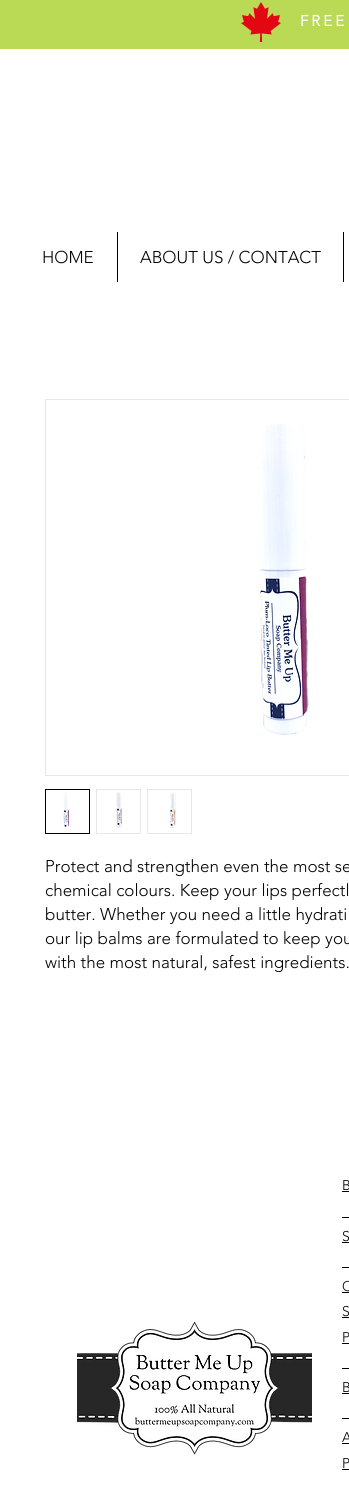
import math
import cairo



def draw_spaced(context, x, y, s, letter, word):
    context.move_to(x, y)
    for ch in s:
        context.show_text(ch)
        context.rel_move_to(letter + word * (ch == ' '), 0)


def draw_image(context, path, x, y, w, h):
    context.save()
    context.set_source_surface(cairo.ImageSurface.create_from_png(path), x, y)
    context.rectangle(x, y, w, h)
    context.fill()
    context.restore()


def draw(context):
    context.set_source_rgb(1, 1, 1)
    context.paint()
    context.set_source_rgb(186 / 255, 218 / 255, 85 / 255)
    context.rectangle(0, 0, 349, 49)
    context.fill()
    draw_image(context, "images/1.png", 241, 2, 40, 40)
    context.set_source_rgb(0, 0, 0)
    context.rectangle(117, 232, 1, 50)
    context.fill()
    context.rectangle(343, 232, 1, 50)
    context.fill()
    context.rectangle(45.5, 399.5, 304, 376)
    context.set_source_rgb(232 / 255, 230 / 255, 230 / 255)
    context.set_line_width(1)
    context.stroke()
    draw_image(context, "images/2.png", 257, 424, 52, 311)
    context.rectangle(45.5, 789.5, 44, 44)
    context.set_source_rgb(0, 0, 0)
    context.stroke()
    draw_image(context, "images/3.png", 63, 792, 7, 37)
    context.rectangle(96.5, 789.5, 44, 44)
    context.set_source_rgb(232 / 255, 230 / 255, 230 / 255)
    context.stroke()
    draw_image(context, "images/4.png", 116, 792, 6, 36)
    context.rectangle(147.5, 789.5, 44, 44)
    context.stroke()
    draw_image(context, "images/5.png", 170, 792, 6, 36)
    draw_image(context, "images/6.png", 77, 1321, 235, 134)
    context.set_source_rgb(0, 0, 0)
    context.rectangle(342, 1191, 7, 1)
    context.fill()
    context.rectangle(342, 1217, 7, 1)
    context.fill()
    context.rectangle(342, 1242, 7, 1)
    context.fill()
    context.rectangle(342, 1267, 7, 1)
    context.fill()
    context.rectangle(342, 1292, 7, 1)
    context.fill()
    context.rectangle(342, 1317, 7, 1)
    context.fill()
    context.rectangle(342, 1343, 7, 1)
    context.fill()
    context.rectangle(342, 1368, 7, 1)
    context.fill()
    context.rectangle(342, 1393, 7, 1)
    context.fill()
    context.rectangle(342, 1418, 7, 1)
    context.fill()
    context.rectangle(342, 1443, 7, 1)
    context.fill()
    context.rectangle(342, 1469, 7, 1)
    context.fill()
    context.select_font_face("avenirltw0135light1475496", cairo.FontSlant.NORMAL, cairo.FontWeight.BOLD)
    context.set_font_size(15)
    context.set_source_rgb(1, 1, 1)
    draw_spaced(context, 300, 26, "FREE", 3, 0)
    context.select_font_face("avenirltw0135light1475496 Light")
    context.set_font_size(17)
    context.set_source_rgb(0, 0, 0)
    context.move_to(42, 263)
    context.show_text("HOME")
    context.move_to(140, 263)
    context.show_text("ABOUT US / CONTACT")
    context.move_to(45, 872)
    context.show_text("Protect and strengthen even the most se")
    context.move_to(45, 896)
    context.show_text("chemical colours. Keep your lips perfectl")
    context.move_to(45, 920)
    context.show_text("butter. Whether you need a little hydrati")
    context.move_to(45, 944)
    context.show_text("our lip balms are formulated to keep you")
    context.move_to(45, 968)
    context.show_text("with the most natural, safest ingredients.")
    context.set_font_size(14)
    draw_spaced(context, 342, 1190, "B", 1, 0)
    context.move_to(342, 1241)
    context.show_text("S")
    context.move_to(342, 1291)
    context.show_text("C")
    context.move_to(342, 1316)
    context.show_text("S")
    context.move_to(342, 1342)
    context.show_text("P")
    context.move_to(342, 1392)
    context.show_text("B")
    context.move_to(342, 1442)
    context.show_text("A")
    context.move_to(342, 1468)
    context.show_text("P")


surface = cairo.ImageSurface(cairo.Format.RGB24, 349, 1494)
context = cairo.Context(surface)
options = cairo.FontOptions()
options.set_hint_metrics(cairo.HintMetrics.OFF)
options.set_hint_style(cairo.HintStyle.NONE)
context.set_font_options(options)
context.set_miter_limit(4)
draw(context)
surface.write_to_png("out.png")
